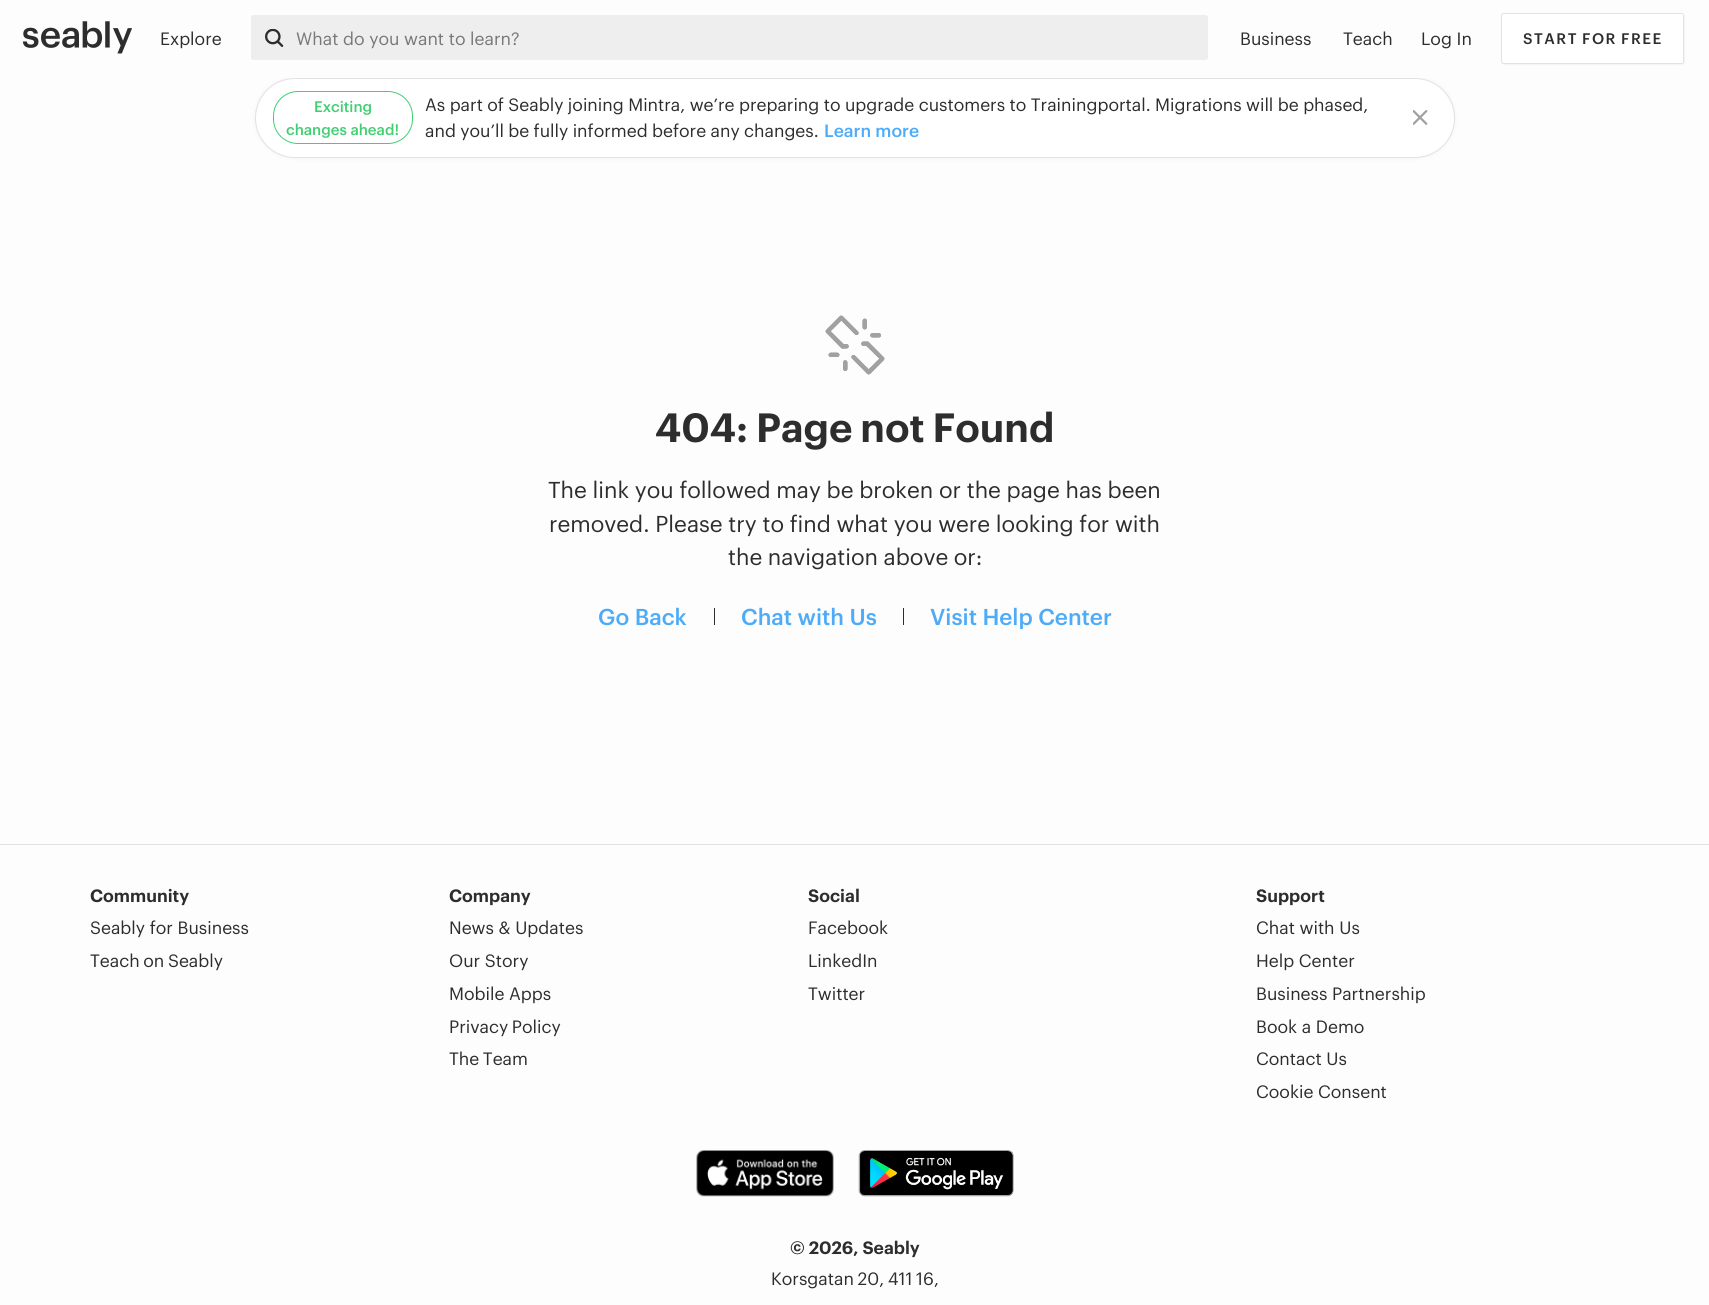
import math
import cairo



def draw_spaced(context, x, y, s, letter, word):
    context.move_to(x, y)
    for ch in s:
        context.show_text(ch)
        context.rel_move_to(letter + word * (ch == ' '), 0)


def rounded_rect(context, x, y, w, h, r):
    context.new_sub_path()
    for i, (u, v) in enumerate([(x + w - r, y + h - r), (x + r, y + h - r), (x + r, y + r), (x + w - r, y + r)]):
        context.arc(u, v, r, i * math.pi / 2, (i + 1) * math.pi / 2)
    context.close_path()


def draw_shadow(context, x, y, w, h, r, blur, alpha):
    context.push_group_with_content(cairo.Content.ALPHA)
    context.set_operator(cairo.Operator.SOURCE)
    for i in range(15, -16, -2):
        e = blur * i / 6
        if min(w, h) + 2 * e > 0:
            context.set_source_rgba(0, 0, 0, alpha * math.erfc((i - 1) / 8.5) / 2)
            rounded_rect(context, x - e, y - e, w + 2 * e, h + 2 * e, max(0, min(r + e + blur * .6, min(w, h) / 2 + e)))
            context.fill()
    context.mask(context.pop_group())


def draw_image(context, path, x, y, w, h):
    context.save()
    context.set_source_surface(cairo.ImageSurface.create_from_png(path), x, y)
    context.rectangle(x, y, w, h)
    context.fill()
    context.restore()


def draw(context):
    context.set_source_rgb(253 / 255, 253 / 255, 253 / 255)
    context.paint()
    context.set_source_rgb(0, 0, 0)
    draw_shadow(context, 255, 78, 1200, 80, 40, 2, 0.05)
    context.set_source_rgb(253 / 255, 253 / 255, 253 / 255)
    context.rectangle(286, 76, 1138, 2)
    context.fill()
    draw_image(context, "images/1.png", 22, 21, 110, 33)
    context.set_source_rgb(238 / 255, 238 / 255, 238 / 255)
    rounded_rect(context, 251, 15, 957, 45, 2.5)
    context.fill()
    draw_image(context, "images/2.png", 265, 29, 19, 18)
    context.set_source_rgb(0, 0, 0)
    draw_shadow(context, 1503, 14, 182, 51, 2.5, 1, 0.04)
    context.set_source_rgb(1, 1, 1)
    rounded_rect(context, 1501.5, 13.5, 182, 50, 2)
    context.fill_preserve()
    context.set_source_rgb(226 / 255, 226 / 255, 226 / 255)
    context.set_line_width(1)
    context.stroke()
    context.set_source_rgb(1, 1, 1)
    rounded_rect(context, 255.5, 78.5, 1199, 79, 39.5)
    context.fill_preserve()
    context.set_source_rgb(226 / 255, 226 / 255, 226 / 255)
    context.stroke()
    rounded_rect(context, 273.5, 91.5, 139, 52, 24.5)
    context.set_source_rgb(65 / 255, 207 / 255, 114 / 255)
    context.stroke()
    draw_image(context, "images/3.png", 1413, 110, 15, 15)
    draw_image(context, "images/4.png", 825, 315, 60, 60)
    context.set_source_rgb(45 / 255, 45 / 255, 45 / 255)
    context.rectangle(714, 608, 1, 17)
    context.fill()
    context.rectangle(903, 608, 1, 17)
    context.fill()
    context.set_source_rgb(226 / 255, 226 / 255, 226 / 255)
    context.rectangle(0, 844, 1709, 1)
    context.fill()
    draw_image(context, "images/5.png", 696, 1150, 138, 47)
    draw_image(context, "images/6.png", 858, 1150, 156, 47)
    context.select_font_face("Graphik")
    context.set_font_size(17.5)
    context.set_source_rgb(45 / 255, 45 / 255, 45 / 255)
    context.move_to(160, 45)
    context.show_text("Explore")
    context.set_source_rgb(120 / 255, 120 / 255, 120 / 255)
    context.move_to(296, 45)
    context.show_text("What do you want to learn?")
    context.set_source_rgb(45 / 255, 45 / 255, 45 / 255)
    context.move_to(1240, 45)
    context.show_text("Business")
    context.move_to(1343, 45)
    context.show_text("Teach")
    context.move_to(1421, 45)
    context.show_text("Log In")
    context.select_font_face("Graphik Medium")
    context.set_font_size(15)
    draw_spaced(context, 1523, 44, "START FOR FREE", 1.5, -1)
    context.set_source_rgb(65 / 255, 207 / 255, 114 / 255)
    context.move_to(314, 112)
    context.show_text("Exciting")
    context.move_to(286, 135)
    context.show_text("changes ahead!")
    context.select_font_face("Graphik")
    context.set_font_size(17.5)
    context.set_source_rgb(45 / 255, 45 / 255, 45 / 255)
    draw_spaced(context, 425, 111, "As part of Seably joining Mintra, we’re preparing to upgrade customers to Trainingportal. Migrations will be phased,", 0, -0.2)
    draw_spaced(context, 425, 137, "and you’ll be fully informed before any changes.", 0, -0.25)
    context.select_font_face("Graphik Medium")
    context.set_source_rgb(77 / 255, 171 / 255, 247 / 255)
    context.move_to(824, 137)
    context.show_text("Learn more")
    context.select_font_face("Graphik SemiBold")
    context.set_font_size(40)
    context.set_source_rgb(45 / 255, 45 / 255, 45 / 255)
    draw_spaced(context, 655, 442, "404: Page not Found", 0, -1)
    context.select_font_face("Graphik")
    context.set_font_size(22.5)
    draw_spaced(context, 548, 498, "The link you followed may be broken or the page has been", 0, -0.25)
    draw_spaced(context, 549, 532, "removed. Please try to find what you were looking for with", 0, -0.25)
    draw_spaced(context, 728, 565, "the navigation above or:", 0, -0.5)
    context.select_font_face("Graphik Medium")
    context.set_source_rgb(77 / 255, 171 / 255, 247 / 255)
    context.move_to(598, 625)
    context.show_text("Go Back")
    context.move_to(741, 625)
    context.show_text("Chat with Us")
    context.move_to(930, 625)
    context.show_text("Visit Help Center")
    context.select_font_face("Graphik SemiBold")
    context.set_font_size(17.5)
    context.set_source_rgb(45 / 255, 45 / 255, 45 / 255)
    context.move_to(90, 902)
    context.show_text("Community")
    context.select_font_face("Graphik")
    context.move_to(90, 934)
    context.show_text("Seably for Business")
    draw_spaced(context, 90, 967, "Teach on Seably", 0, -1)
    context.select_font_face("Graphik SemiBold")
    context.move_to(449, 902)
    context.show_text("Company")
    context.select_font_face("Graphik")
    context.move_to(449, 934)
    context.show_text("News & Updates")
    context.move_to(449, 967)
    context.show_text("Our Story")
    context.move_to(449, 1000)
    context.show_text("Mobile Apps")
    draw_spaced(context, 449, 1033, "Privacy Policy", 0, -1)
    draw_spaced(context, 449, 1065, "The Team", 0, -1)
    context.select_font_face("Graphik SemiBold")
    context.move_to(808, 902)
    context.show_text("Social")
    context.select_font_face("Graphik")
    context.move_to(808, 934)
    context.show_text("Facebook")
    context.move_to(808, 967)
    context.show_text("LinkedIn")
    context.move_to(808, 1000)
    context.show_text("Twitter")
    context.select_font_face("Graphik SemiBold")
    context.move_to(1256, 902)
    context.show_text("Support")
    context.select_font_face("Graphik")
    context.move_to(1256, 934)
    context.show_text("Chat with Us")
    context.move_to(1256, 967)
    context.show_text("Help Center")
    context.move_to(1256, 1000)
    context.show_text("Business Partnership")
    context.move_to(1256, 1033)
    context.show_text("Book a Demo")
    context.move_to(1256, 1065)
    context.show_text("Contact Us")
    context.move_to(1256, 1098)
    context.show_text("Cookie Consent")
    context.select_font_face("Graphik SemiBold")
    context.move_to(790, 1254)
    context.show_text("© 2026, Seably")
    context.select_font_face("Graphik")
    draw_spaced(context, 771, 1285, "Korsgatan 20, 411 16,", 0, -1)


surface = cairo.ImageSurface(cairo.Format.RGB24, 1709, 1305)
context = cairo.Context(surface)
options = cairo.FontOptions()
options.set_hint_metrics(cairo.HintMetrics.OFF)
options.set_hint_style(cairo.HintStyle.NONE)
context.set_font_options(options)
context.set_miter_limit(4)
draw(context)
surface.write_to_png("out.png")
